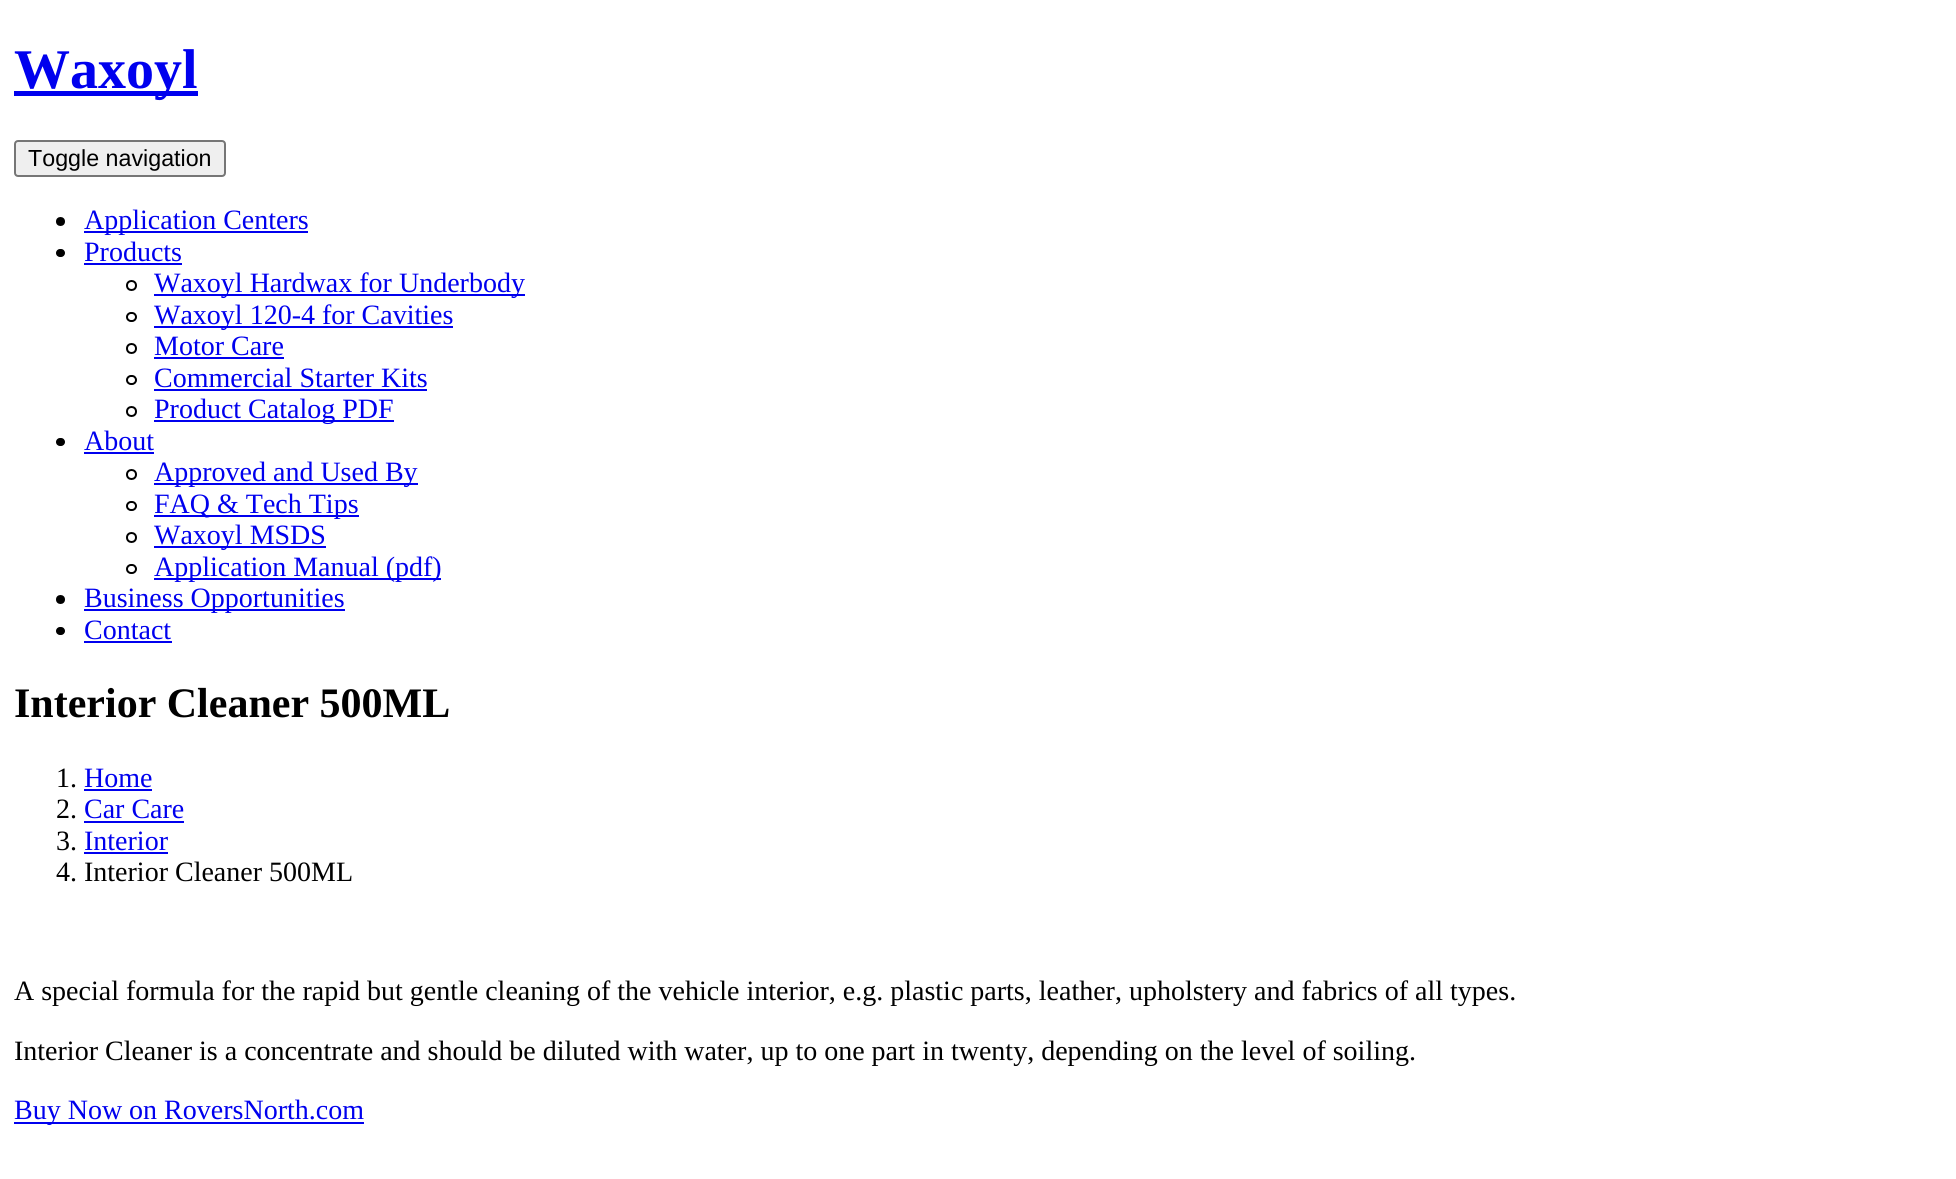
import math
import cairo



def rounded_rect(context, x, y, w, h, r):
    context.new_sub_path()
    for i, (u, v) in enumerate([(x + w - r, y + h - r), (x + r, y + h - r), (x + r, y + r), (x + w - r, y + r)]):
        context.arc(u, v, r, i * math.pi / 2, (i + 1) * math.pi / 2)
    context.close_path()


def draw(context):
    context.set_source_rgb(1, 1, 1)
    context.paint()
    context.set_source_rgb(0, 0, 238 / 255)
    context.rectangle(14, 91, 184, 5)
    context.fill()
    context.set_source_rgb(239 / 255, 239 / 255, 239 / 255)
    rounded_rect(context, 15, 141, 210, 35, 3)
    context.fill_preserve()
    context.set_source_rgb(118 / 255, 118 / 255, 118 / 255)
    context.stroke()
    context.set_source_rgb(0, 0, 0)
    context.arc(60.5, 221.5, 4.5, 0, 2 * math.pi)
    context.fill()
    context.set_source_rgb(0, 0, 238 / 255)
    context.rectangle(84, 231, 224, 2)
    context.fill()
    context.set_source_rgb(0, 0, 0)
    rounded_rect(context, 56, 249, 9, 8, 4)
    context.fill()
    context.set_source_rgb(0, 0, 238 / 255)
    context.rectangle(84, 263, 98, 2)
    context.fill()
    context.arc(131.5, 285.5, 4.5, 0, 2 * math.pi)
    context.set_source_rgb(0, 0, 0)
    context.stroke()
    context.set_source_rgb(0, 0, 238 / 255)
    context.rectangle(154, 294, 371, 2)
    context.fill()
    rounded_rect(context, 127, 313, 9, 8, 4)
    context.set_source_rgb(0, 0, 0)
    context.stroke()
    context.set_source_rgb(0, 0, 238 / 255)
    context.rectangle(154, 326, 299, 2)
    context.fill()
    context.arc(131.5, 348.5, 4.5, 0, 2 * math.pi)
    context.set_source_rgb(0, 0, 0)
    context.stroke()
    context.set_source_rgb(0, 0, 238 / 255)
    context.rectangle(154, 357, 130, 2)
    context.fill()
    rounded_rect(context, 127, 376, 9, 8, 4)
    context.set_source_rgb(0, 0, 0)
    context.stroke()
    context.set_source_rgb(0, 0, 238 / 255)
    context.rectangle(154, 389, 273, 2)
    context.fill()
    context.arc(131.5, 411.5, 4.5, 0, 2 * math.pi)
    context.set_source_rgb(0, 0, 0)
    context.stroke()
    context.set_source_rgb(0, 0, 238 / 255)
    context.rectangle(154, 420, 240, 2)
    context.fill()
    context.set_source_rgb(0, 0, 0)
    rounded_rect(context, 56, 438, 9, 8, 4)
    context.fill()
    context.set_source_rgb(0, 0, 238 / 255)
    context.rectangle(84, 452, 70, 2)
    context.fill()
    context.arc(131.5, 474.5, 4.5, 0, 2 * math.pi)
    context.set_source_rgb(0, 0, 0)
    context.stroke()
    context.set_source_rgb(0, 0, 238 / 255)
    context.rectangle(154, 483, 264, 2)
    context.fill()
    rounded_rect(context, 127, 502, 9, 8, 4)
    context.set_source_rgb(0, 0, 0)
    context.stroke()
    context.set_source_rgb(0, 0, 238 / 255)
    context.rectangle(154, 515, 205, 2)
    context.fill()
    context.arc(131.5, 537.5, 4.5, 0, 2 * math.pi)
    context.set_source_rgb(0, 0, 0)
    context.stroke()
    context.set_source_rgb(0, 0, 238 / 255)
    context.rectangle(154, 546, 172, 2)
    context.fill()
    rounded_rect(context, 127, 565, 9, 8, 4)
    context.set_source_rgb(0, 0, 0)
    context.stroke()
    context.set_source_rgb(0, 0, 238 / 255)
    context.rectangle(154, 578, 287, 2)
    context.fill()
    context.set_source_rgb(0, 0, 0)
    context.arc(60.5, 599.5, 4.5, 0, 2 * math.pi)
    context.fill()
    context.set_source_rgb(0, 0, 238 / 255)
    context.rectangle(84, 609, 261, 2)
    context.fill()
    context.set_source_rgb(0, 0, 0)
    rounded_rect(context, 56, 627, 9, 8, 4)
    context.fill()
    context.set_source_rgb(0, 0, 238 / 255)
    context.rectangle(84, 641, 88, 2)
    context.fill()
    context.rectangle(84, 789, 68, 2)
    context.fill()
    context.rectangle(84, 821, 100, 2)
    context.fill()
    context.rectangle(84, 852, 84, 2)
    context.fill()
    context.rectangle(14, 1122, 350, 2)
    context.fill()
    context.select_font_face("Liberation Serif", cairo.FontSlant.NORMAL, cairo.FontWeight.BOLD)
    context.set_font_size(56)
    context.move_to(14, 88)
    context.show_text("Waxoyl")
    context.select_font_face("Liberation Sans")
    context.set_font_size(23.25)
    context.set_source_rgb(0, 0, 0)
    context.move_to(28, 166)
    context.show_text("Toggle navigation")
    context.select_font_face("Liberation Serif")
    context.set_font_size(28)
    context.set_source_rgb(0, 0, 238 / 255)
    context.move_to(84, 229)
    context.show_text("Application Centers")
    context.move_to(84, 261)
    context.show_text("Products")
    context.move_to(154, 292)
    context.show_text("Waxoyl Hardwax for Underbody")
    context.move_to(154, 324)
    context.show_text("Waxoyl 120-4 for Cavities")
    context.move_to(154, 355)
    context.show_text("Motor Care")
    context.move_to(154, 387)
    context.show_text("Commercial Starter Kits")
    context.move_to(154, 418)
    context.show_text("Product Catalog PDF")
    context.move_to(84, 450)
    context.show_text("About")
    context.move_to(154, 481)
    context.show_text("Approved and Used By")
    context.move_to(154, 513)
    context.show_text("FAQ & Tech Tips")
    context.move_to(154, 544)
    context.show_text("Waxoyl MSDS")
    context.move_to(154, 576)
    context.show_text("Application Manual (pdf)")
    context.move_to(84, 607)
    context.show_text("Business Opportunities")
    context.move_to(84, 639)
    context.show_text("Contact")
    context.select_font_face("Liberation Serif", cairo.FontSlant.NORMAL, cairo.FontWeight.BOLD)
    context.set_font_size(42)
    context.set_source_rgb(0, 0, 0)
    context.move_to(14, 717)
    context.show_text("Interior Cleaner 500ML")
    context.select_font_face("Liberation Serif")
    context.set_font_size(28)
    context.move_to(56, 787)
    context.show_text("1.")
    context.set_source_rgb(0, 0, 238 / 255)
    context.move_to(84, 787)
    context.show_text("Home")
    context.set_source_rgb(0, 0, 0)
    context.move_to(56, 818)
    context.show_text("2.")
    context.set_source_rgb(0, 0, 238 / 255)
    context.move_to(84, 818)
    context.show_text("Car Care")
    context.set_source_rgb(0, 0, 0)
    context.move_to(56, 850)
    context.show_text("3.")
    context.set_source_rgb(0, 0, 238 / 255)
    context.move_to(84, 850)
    context.show_text("Interior")
    context.set_source_rgb(0, 0, 0)
    context.move_to(56, 881)
    context.show_text("4. Interior Cleaner 500ML")
    context.move_to(14, 1000)
    context.show_text("A special formula for the rapid but gentle cleaning of the vehicle interior, e.g. plastic parts, leather, upholstery and fabrics of all types.")
    context.move_to(14, 1060)
    context.show_text("Interior Cleaner is a concentrate and should be diluted with water, up to one part in twenty, depending on the level of soiling.")
    context.set_source_rgb(0, 0, 238 / 255)
    context.move_to(14, 1119)
    context.show_text("Buy Now on RoversNorth.com")


surface = cairo.ImageSurface(cairo.Format.RGB24, 1956, 1179)
context = cairo.Context(surface)
options = cairo.FontOptions()
options.set_hint_metrics(cairo.HintMetrics.OFF)
options.set_hint_style(cairo.HintStyle.NONE)
context.set_font_options(options)
context.set_miter_limit(4)
draw(context)
surface.write_to_png("out.png")
